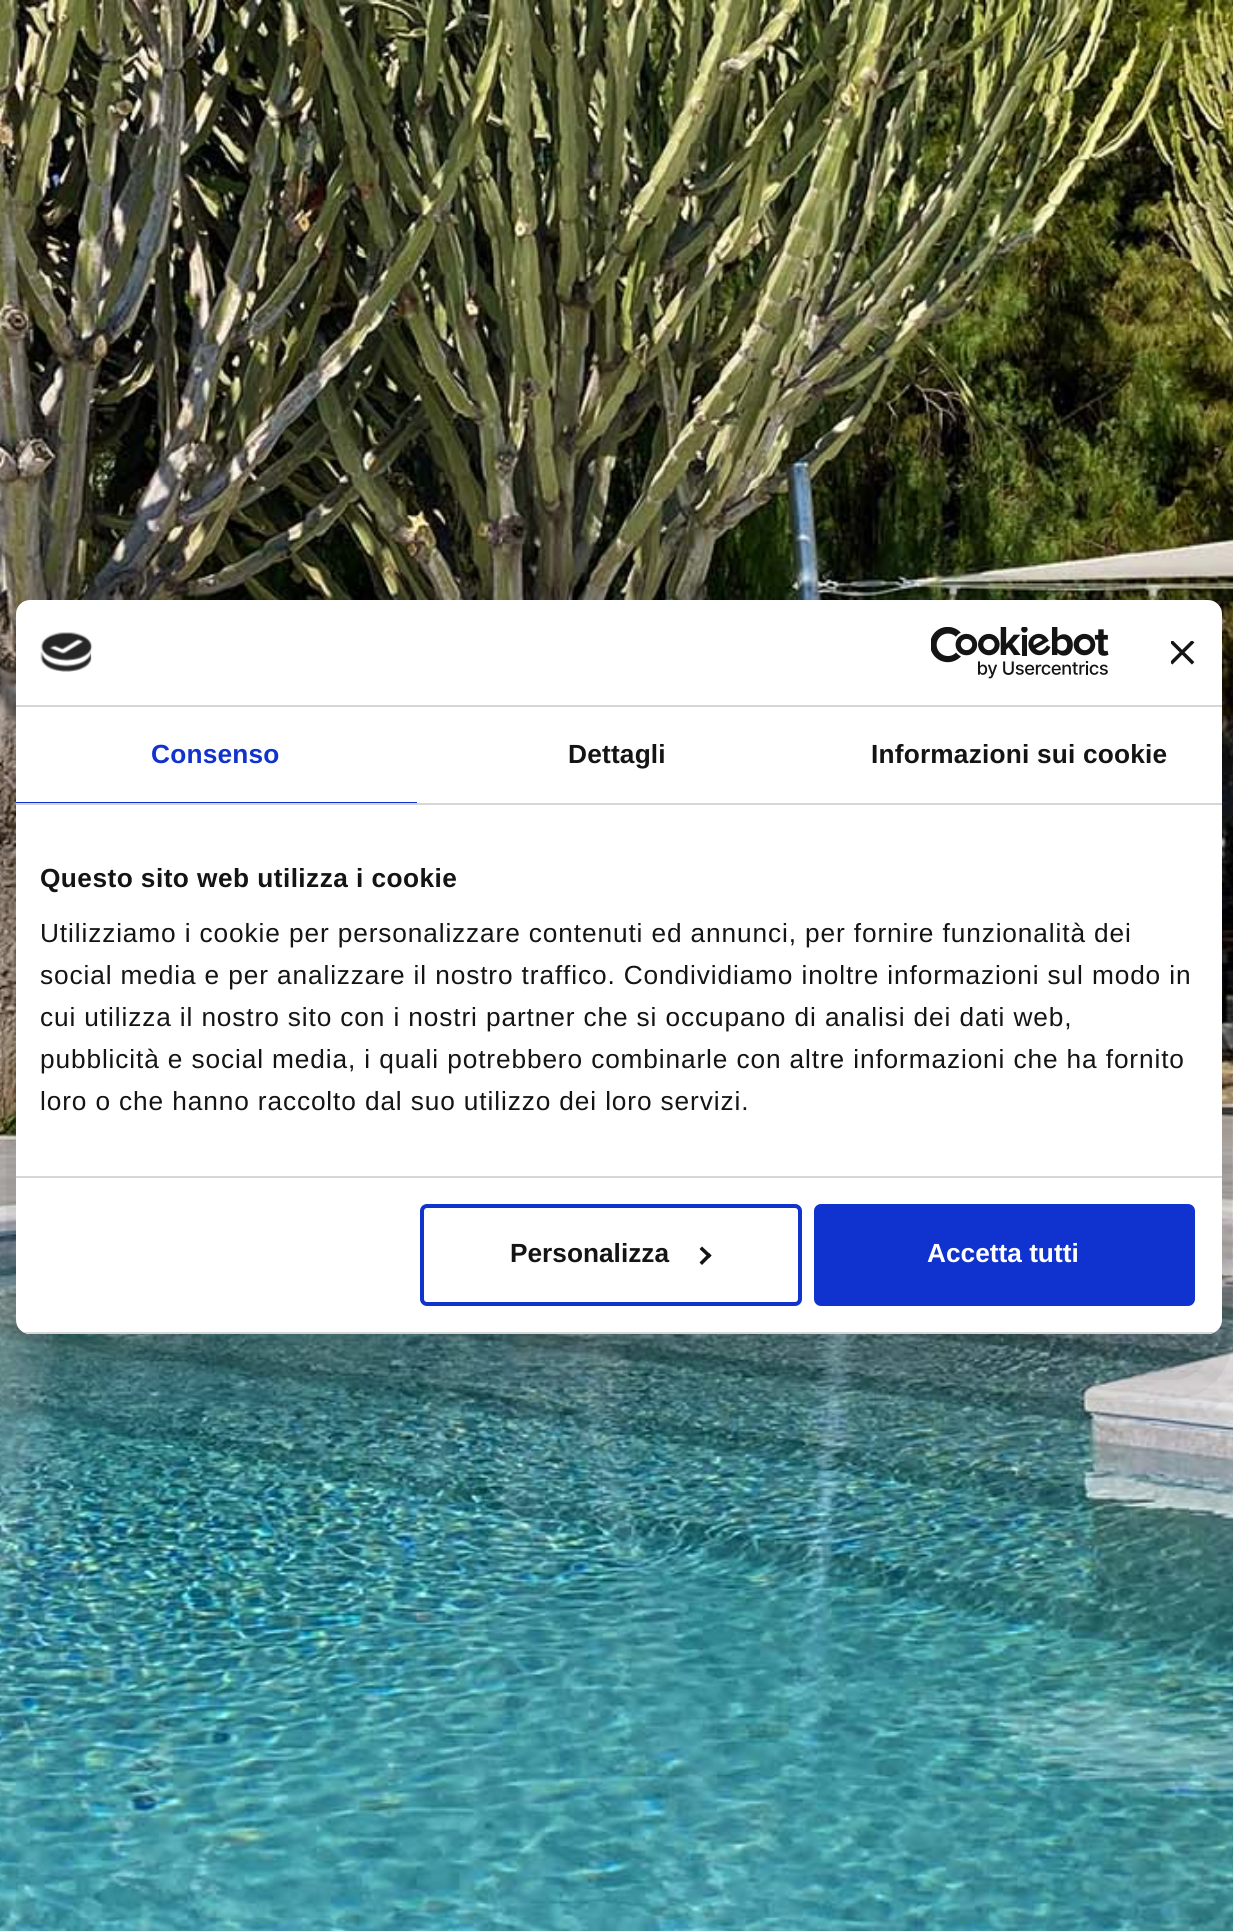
import math
import cairo



def draw_spaced(context, x, y, s, letter, word):
    context.move_to(x, y)
    for ch in s:
        context.show_text(ch)
        context.rel_move_to(letter + word * (ch == ' '), 0)


def rounded_rect(context, x, y, w, h, r):
    context.new_sub_path()
    for i, (u, v) in enumerate([(x + w - r, y + h - r), (x + r, y + h - r), (x + r, y + r), (x + w - r, y + r)]):
        context.arc(u, v, r, i * math.pi / 2, (i + 1) * math.pi / 2)
    context.close_path()


def draw_shadow(context, x, y, w, h, r, blur, alpha):
    context.push_group_with_content(cairo.Content.ALPHA)
    context.set_operator(cairo.Operator.SOURCE)
    for i in range(15, -16, -2):
        e = blur * i / 6
        if min(w, h) + 2 * e > 0:
            context.set_source_rgba(0, 0, 0, alpha * math.erfc((i - 1) / 8.5) / 2)
            rounded_rect(context, x - e, y - e, w + 2 * e, h + 2 * e, max(0, min(r + e + blur * .6, min(w, h) / 2 + e)))
            context.fill()
    context.mask(context.pop_group())


def draw_image(context, path, x, y, w, h):
    context.save()
    context.set_source_surface(cairo.ImageSurface.create_from_png(path), x, y)
    context.rectangle(x, y, w, h)
    context.fill()
    context.restore()


def draw(context):
    context.set_source_rgb(1, 1, 1)
    context.paint()
    draw_image(context, "images/1.png", 0, 0, 1233, 1931)
    context.set_source_rgb(0, 0, 0)
    draw_shadow(context, 16, 656, 1206, 734, 14, 59.5, 0.3)
    context.set_source_rgb(1, 1, 1)
    rounded_rect(context, 16, 600, 1206, 734, 14)
    context.fill()
    context.set_source_rgb(214 / 255, 214 / 255, 214 / 255)
    context.rectangle(16, 705, 1206, 2)
    context.fill()
    draw_image(context, "images/2.png", 40, 632, 53, 40)
    draw_image(context, "images/3.png", 931, 627, 178, 52)
    draw_image(context, "images/4.png", 1171, 641, 24, 24)
    context.rectangle(16, 803, 1206, 2)
    context.fill()
    context.set_source_rgb(16 / 255, 50 / 255, 207 / 255)
    context.rectangle(16, 802, 401, 1)
    context.fill()
    context.set_source_rgb(214 / 255, 214 / 255, 214 / 255)
    context.rectangle(16, 1176, 1206, 2)
    context.fill()
    context.save()
    rounded_rect(context, 16, 600, 1206, 734, 14)
    context.clip()
    context.rectangle(16, 1332, 1206, 2)
    context.fill()
    context.restore()
    rounded_rect(context, 422, 1206, 378, 98, 5)
    context.set_source_rgb(16 / 255, 50 / 255, 207 / 255)
    context.set_line_width(4)
    context.stroke()
    context.set_source_rgb(20 / 255, 20 / 255, 20 / 255)
    context.new_path()
    context.move_to(702, 1246.5)
    context.line_to(711.5, 1255.5)
    context.line_to(709, 1258)
    context.line_to(699.5, 1249)
    context.close_path()
    context.fill()
    context.new_path()
    context.move_to(709, 1253)
    context.line_to(711.5, 1255.5)
    context.line_to(702, 1265)
    context.line_to(699.5, 1262.5)
    context.close_path()
    context.fill()
    context.set_source_rgb(16 / 255, 50 / 255, 207 / 255)
    rounded_rect(context, 816, 1206, 377, 98, 5)
    context.fill_preserve()
    context.stroke()
    context.select_font_face("Liberation Sans", cairo.FontSlant.NORMAL, cairo.FontWeight.BOLD)
    context.set_font_size(26.25)
    draw_spaced(context, 151, 763, "Consenso", 0.2, 0)
    context.set_source_rgb(20 / 255, 20 / 255, 20 / 255)
    draw_spaced(context, 568, 763, "Dettagli", 0.2, 0)
    draw_spaced(context, 871, 763, "Informazioni sui cookie", 0.2, 0)
    draw_spaced(context, 40, 887, "Questo sito web utilizza i cookie", 0.45, 0)
    context.select_font_face("Liberation Sans")
    draw_spaced(context, 40, 942, "Utilizziamo i cookie per personalizzare contenuti ed annunci, per fornire funzionalità dei", 0.88, 0)
    draw_spaced(context, 40, 984, "social media e per analizzare il nostro traffico. Condividiamo inoltre informazioni sul modo in", 0.88, 0)
    draw_spaced(context, 40, 1026, "cui utilizza il nostro sito con i nostri partner che si occupano di analisi dei dati web,", 0.88, 0)
    draw_spaced(context, 40, 1068, "pubblicità e social media, i quali potrebbero combinarle con altre informazioni che ha fornito", 0.88, 0)
    draw_spaced(context, 40, 1110, "loro o che hanno raccolto dal suo utilizzo dei loro servizi.", 0.88, 0)
    context.select_font_face("Liberation Sans", cairo.FontSlant.NORMAL, cairo.FontWeight.BOLD)
    context.move_to(510, 1262)
    context.show_text("Personalizza")
    context.set_source_rgb(1, 1, 1)
    context.move_to(927, 1262)
    context.show_text("Accetta tutti")


surface = cairo.ImageSurface(cairo.Format.RGB24, 1233, 1931)
context = cairo.Context(surface)
options = cairo.FontOptions()
options.set_hint_metrics(cairo.HintMetrics.OFF)
options.set_hint_style(cairo.HintStyle.NONE)
context.set_font_options(options)
context.set_miter_limit(4)
draw(context)
surface.write_to_png("out.png")
